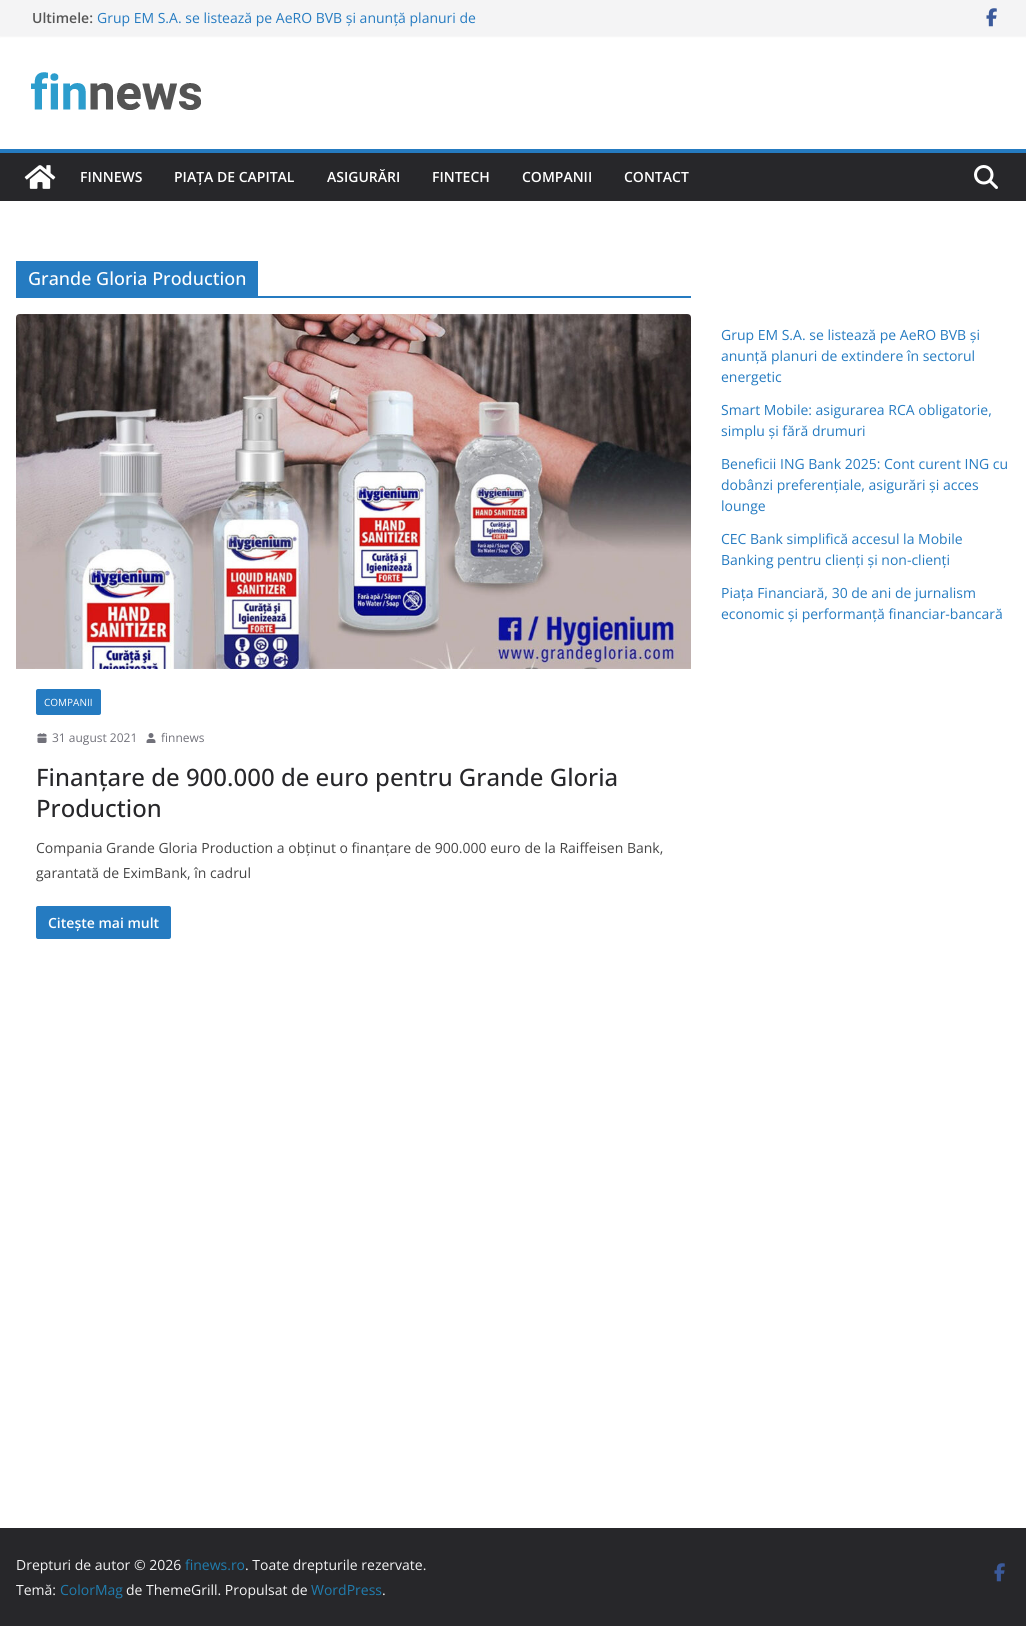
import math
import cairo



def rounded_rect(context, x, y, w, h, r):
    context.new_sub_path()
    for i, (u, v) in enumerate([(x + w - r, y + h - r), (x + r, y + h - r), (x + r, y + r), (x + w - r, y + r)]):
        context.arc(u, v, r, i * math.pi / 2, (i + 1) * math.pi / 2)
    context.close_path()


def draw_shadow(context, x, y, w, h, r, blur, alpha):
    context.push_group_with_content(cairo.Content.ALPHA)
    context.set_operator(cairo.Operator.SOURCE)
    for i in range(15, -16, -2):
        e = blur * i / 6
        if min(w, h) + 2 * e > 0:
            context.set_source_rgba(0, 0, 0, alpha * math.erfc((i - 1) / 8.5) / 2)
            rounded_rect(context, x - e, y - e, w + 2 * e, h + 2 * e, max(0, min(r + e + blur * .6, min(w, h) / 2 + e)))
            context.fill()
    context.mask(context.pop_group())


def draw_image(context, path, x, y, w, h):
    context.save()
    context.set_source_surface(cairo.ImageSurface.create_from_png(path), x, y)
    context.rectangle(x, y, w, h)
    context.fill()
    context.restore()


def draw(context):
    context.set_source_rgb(1, 1, 1)
    context.paint()
    context.set_source_rgb(0, 0, 0)
    draw_shadow(context, 0, 0, 1026, 36, 0, 1, 0.1)
    context.set_source_rgb(244 / 255, 244 / 255, 245 / 255)
    context.rectangle(0, 0, 1026, 36)
    context.fill()
    draw_image(context, "images/1.png", 986, 8, 11, 19)
    draw_image(context, "images/2.png", 31, 72, 170, 38)
    context.set_source_rgb(39 / 255, 39 / 255, 42 / 255)
    context.rectangle(0, 153, 1026, 48)
    context.fill()
    context.set_source_rgb(37 / 255, 123 / 255, 193 / 255)
    context.rectangle(0, 149, 1026, 4)
    context.fill()
    draw_image(context, "images/3.png", 24, 165, 32, 24)
    draw_image(context, "images/4.png", 974, 165, 24, 24)
    context.rectangle(16, 296, 675, 2)
    context.fill()
    context.rectangle(16, 261, 242, 35)
    context.fill()
    draw_image(context, "images/5.png", 16, 314, 675, 355)
    rounded_rect(context, 36, 689, 65, 26, 2)
    context.fill()
    draw_image(context, "images/6.png", 37, 733, 10, 10)
    draw_image(context, "images/7.png", 146, 733, 10, 10)
    rounded_rect(context, 36, 906, 135, 33, 2)
    context.fill()
    context.set_source_rgb(39 / 255, 39 / 255, 42 / 255)
    context.rectangle(0, 1528, 1026, 98)
    context.fill()
    draw_image(context, "images/8.png", 994, 1563, 11, 19)
    context.select_font_face("Open Sans SemiBold")
    context.set_font_size(14)
    context.set_source_rgb(85 / 255, 85 / 255, 85 / 255)
    context.move_to(32, 23)
    context.show_text("Ultimele:")
    context.select_font_face("Open Sans")
    context.set_source_rgb(37 / 255, 123 / 255, 193 / 255)
    context.move_to(97, 23)
    context.show_text("Grup EM S.A. se listează pe AeRO BVB și anunță planuri de")
    context.select_font_face("Open Sans SemiBold")
    context.set_source_rgb(1, 1, 1)
    context.move_to(80, 182)
    context.show_text("FINNEWS")
    context.move_to(174, 182)
    context.show_text("PIAȚA DE CAPITAL")
    context.move_to(327, 182)
    context.show_text("ASIGURĂRI")
    context.move_to(432, 182)
    context.show_text("FINTECH")
    context.move_to(522, 182)
    context.show_text("COMPANII")
    context.move_to(624, 182)
    context.show_text("CONTACT")
    context.select_font_face("Open Sans Medium")
    context.set_font_size(18)
    context.move_to(28, 285)
    context.show_text("Grande Gloria Production")
    context.select_font_face("Open Sans")
    context.set_font_size(10)
    context.move_to(44, 706)
    context.show_text("COMPANII")
    context.set_font_size(12)
    context.set_source_rgb(113 / 255, 113 / 255, 122 / 255)
    context.move_to(52, 742)
    context.show_text("31 august 2021")
    context.move_to(161, 742)
    context.show_text("finnews")
    context.select_font_face("Open Sans Medium")
    context.set_font_size(24)
    context.set_source_rgb(39 / 255, 39 / 255, 42 / 255)
    context.move_to(36, 786)
    context.show_text("Finanțare de 900.000 de euro pentru Grande Gloria")
    context.move_to(36, 817)
    context.show_text("Production")
    context.select_font_face("Open Sans")
    context.set_font_size(14)
    context.set_source_rgb(68 / 255, 68 / 255, 68 / 255)
    context.move_to(36, 853)
    context.show_text("Compania Grande Gloria Production a obținut o finanțare de 900.000 euro de la Raiffeisen Bank,")
    context.move_to(36, 878)
    context.show_text("garantată de EximBank, în cadrul")
    context.select_font_face("Open Sans SemiBold")
    context.set_source_rgb(1, 1, 1)
    context.move_to(48, 928)
    context.show_text("Citește mai mult")
    context.select_font_face("Open Sans")
    context.set_source_rgb(37 / 255, 123 / 255, 193 / 255)
    context.move_to(721, 340)
    context.show_text("Grup EM S.A. se listează pe AeRO BVB și")
    context.move_to(721, 361)
    context.show_text("anunță planuri de extindere în sectorul")
    context.move_to(721, 382)
    context.show_text("energetic")
    context.move_to(721, 415)
    context.show_text("Smart Mobile: asigurarea RCA obligatorie,")
    context.move_to(721, 436)
    context.show_text("simplu și fără drumuri")
    context.move_to(721, 469)
    context.show_text("Beneficii ING Bank 2025: Cont curent ING cu")
    context.move_to(721, 490)
    context.show_text("dobânzi preferențiale, asigurări și acces")
    context.move_to(721, 511)
    context.show_text("lounge")
    context.move_to(721, 544)
    context.show_text("CEC Bank simplifică accesul la Mobile")
    context.move_to(721, 565)
    context.show_text("Banking pentru clienți și non-clienți")
    context.move_to(721, 598)
    context.show_text("Piața Financiară, 30 de ani de jurnalism")
    context.move_to(721, 619)
    context.show_text("economic și performanță financiar-bancară")
    context.set_source_rgb(244 / 255, 244 / 255, 245 / 255)
    context.move_to(16, 1570)
    context.show_text("Drepturi de autor © 2026")
    context.set_source_rgb(32 / 255, 125 / 255, 175 / 255)
    context.move_to(185, 1570)
    context.show_text("finews.ro")
    context.set_source_rgb(244 / 255, 244 / 255, 245 / 255)
    context.move_to(245, 1570)
    context.show_text(". Toate drepturile rezervate.")
    context.move_to(16, 1595)
    context.show_text("Temă:")
    context.set_source_rgb(32 / 255, 125 / 255, 175 / 255)
    context.move_to(60, 1595)
    context.show_text("ColorMag")
    context.set_source_rgb(244 / 255, 244 / 255, 245 / 255)
    context.move_to(126, 1595)
    context.show_text("de ThemeGrill. Propulsat de")
    context.set_source_rgb(32 / 255, 125 / 255, 175 / 255)
    context.move_to(311, 1595)
    context.show_text("WordPress")
    context.set_source_rgb(244 / 255, 244 / 255, 245 / 255)
    context.move_to(382, 1595)
    context.show_text(".")


surface = cairo.ImageSurface(cairo.Format.RGB24, 1026, 1626)
context = cairo.Context(surface)
options = cairo.FontOptions()
options.set_hint_metrics(cairo.HintMetrics.OFF)
options.set_hint_style(cairo.HintStyle.NONE)
context.set_font_options(options)
context.set_miter_limit(4)
draw(context)
surface.write_to_png("out.png")
